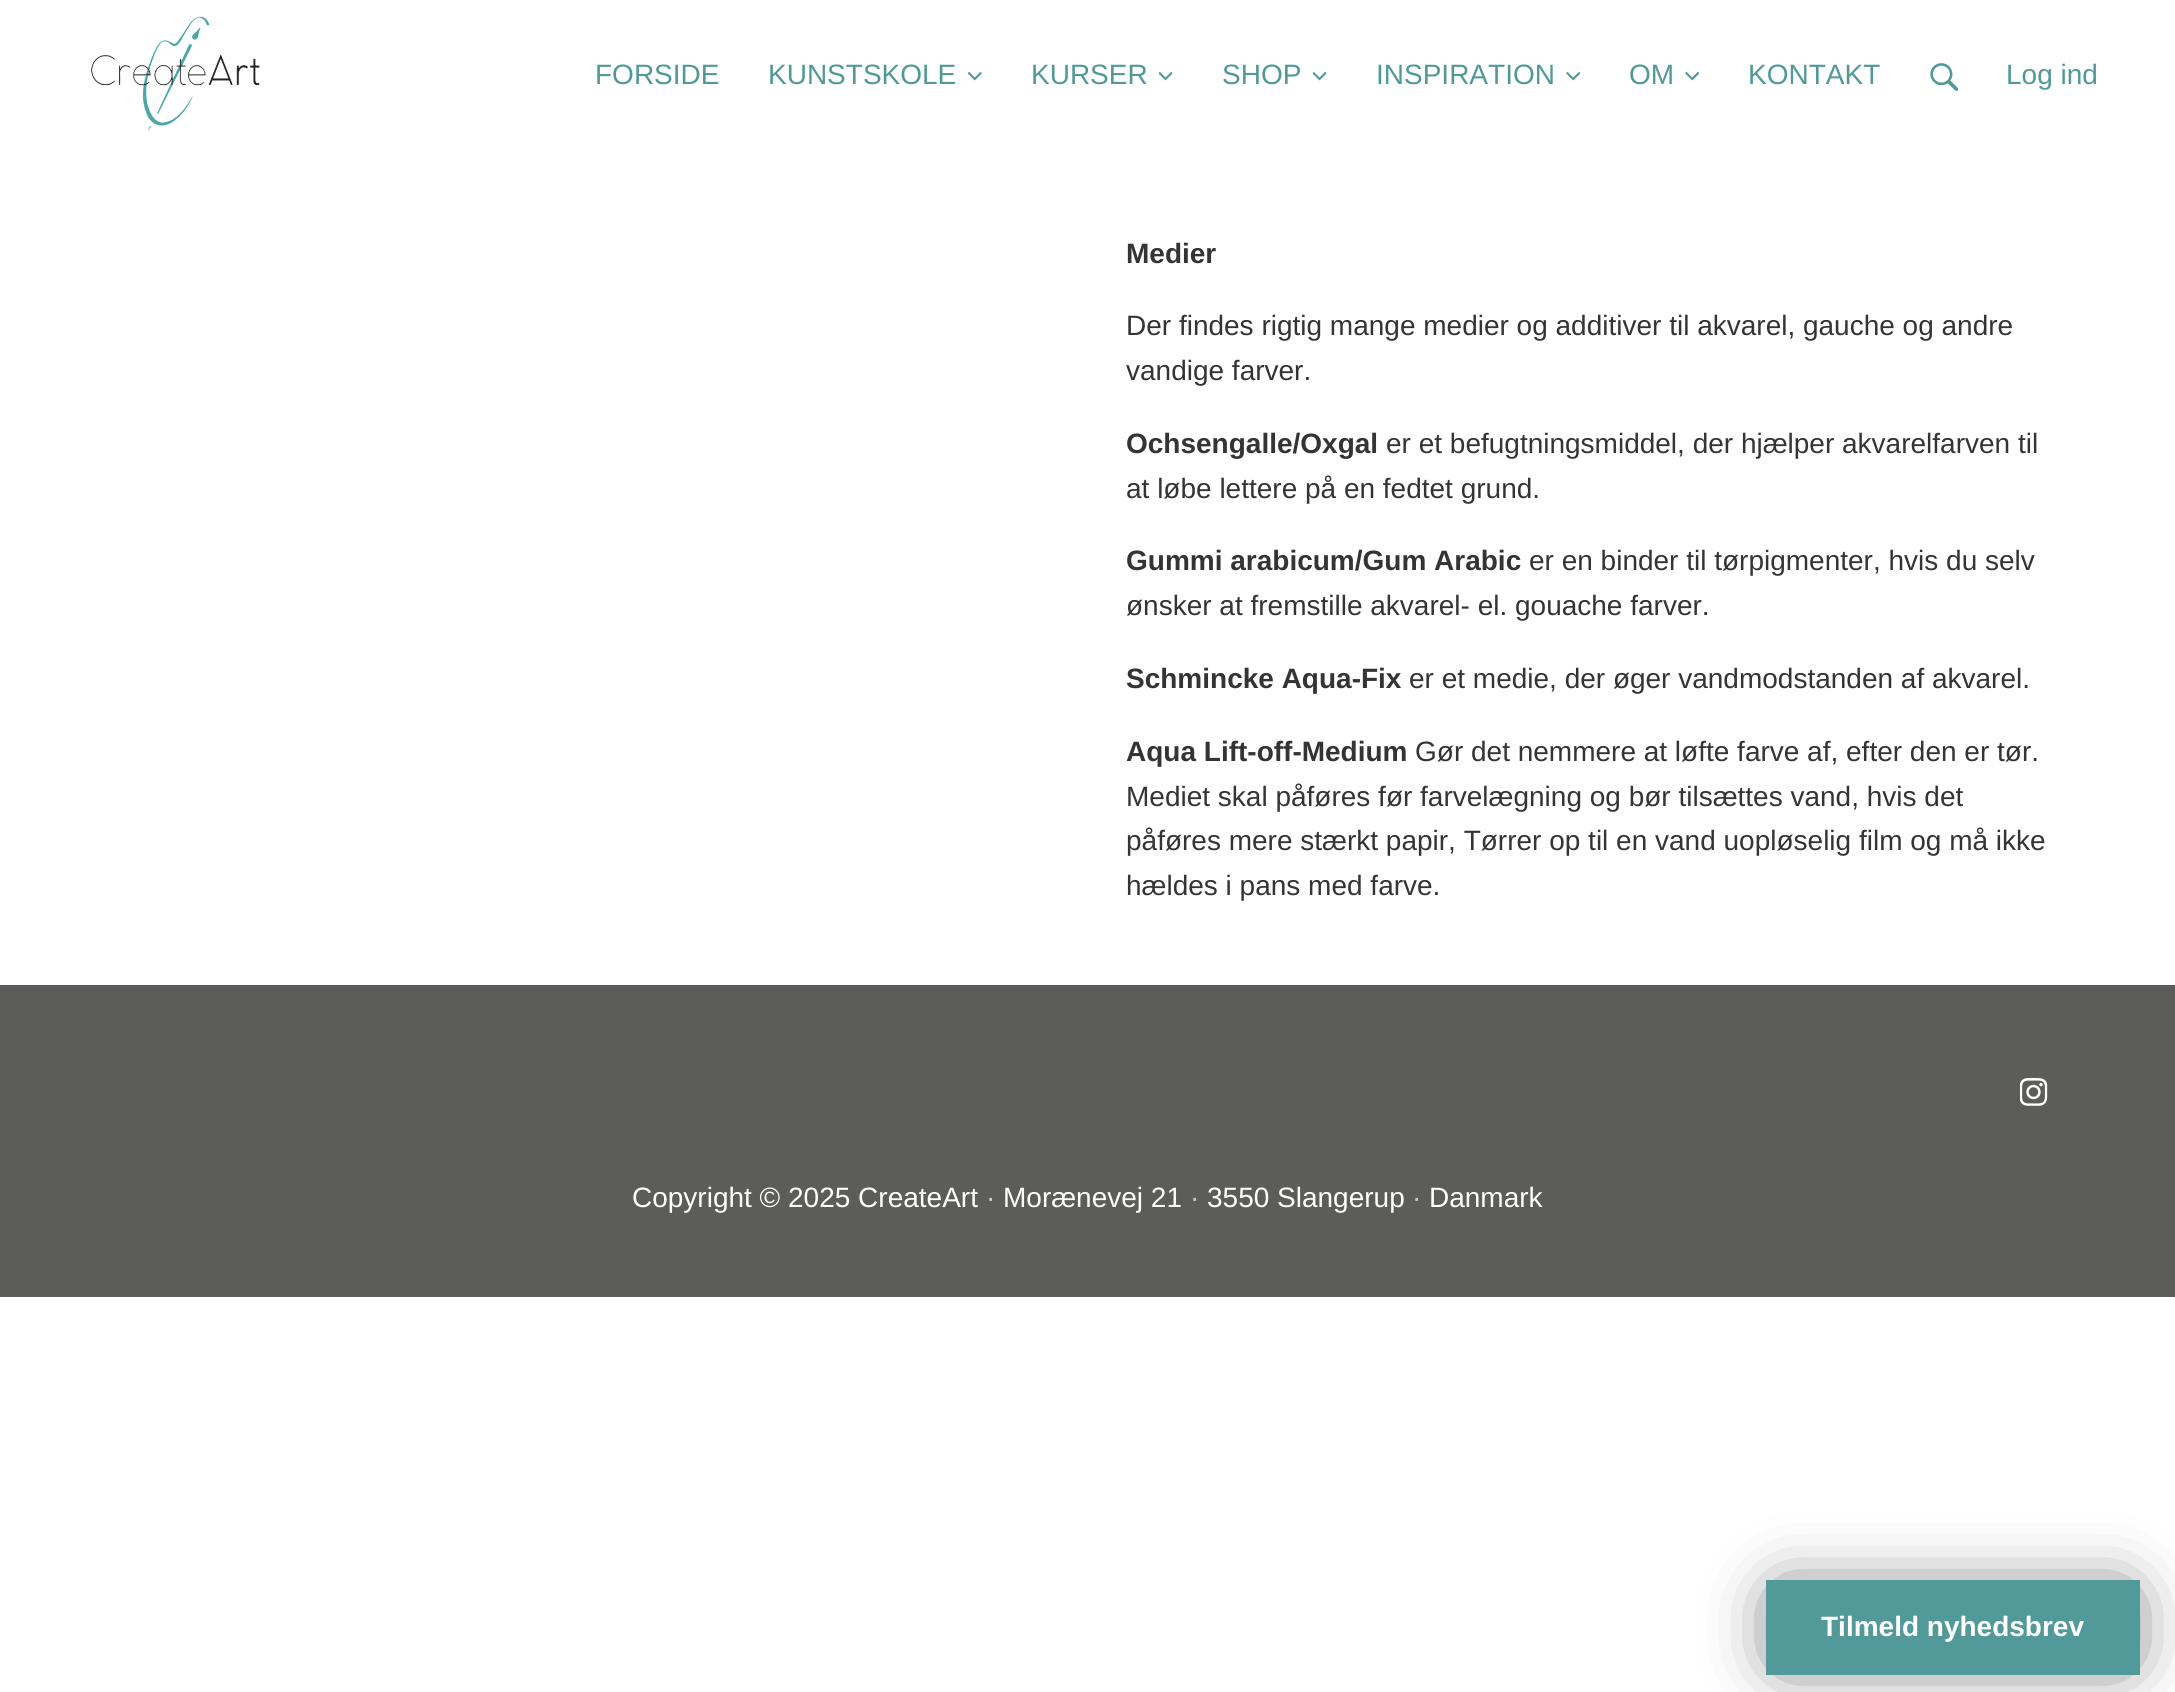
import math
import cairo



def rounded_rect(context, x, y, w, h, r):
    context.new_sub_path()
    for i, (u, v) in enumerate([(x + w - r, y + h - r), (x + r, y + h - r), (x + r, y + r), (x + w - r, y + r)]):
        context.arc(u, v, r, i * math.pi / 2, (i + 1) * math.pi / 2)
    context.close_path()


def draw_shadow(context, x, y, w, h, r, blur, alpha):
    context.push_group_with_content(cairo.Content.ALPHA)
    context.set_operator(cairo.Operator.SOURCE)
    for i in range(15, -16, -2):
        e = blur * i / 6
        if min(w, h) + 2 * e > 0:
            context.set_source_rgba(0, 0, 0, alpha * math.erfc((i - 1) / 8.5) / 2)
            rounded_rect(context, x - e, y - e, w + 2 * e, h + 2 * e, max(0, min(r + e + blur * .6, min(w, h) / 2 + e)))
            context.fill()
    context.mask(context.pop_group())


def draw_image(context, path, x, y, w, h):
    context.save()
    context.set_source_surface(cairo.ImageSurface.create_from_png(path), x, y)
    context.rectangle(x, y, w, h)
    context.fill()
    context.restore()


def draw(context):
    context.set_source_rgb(1, 1, 1)
    context.paint()
    draw_image(context, "images/1.png", 91, 16, 169, 115)
    draw_image(context, "images/2.png", 968, 72, 14, 9)
    draw_image(context, "images/3.png", 1159, 72, 14, 9)
    draw_image(context, "images/3.png", 1313, 72, 14, 9)
    draw_image(context, "images/4.png", 1566, 72, 14, 9)
    draw_image(context, "images/4.png", 1685, 72, 14, 9)
    draw_image(context, "images/5.png", 1930, 63, 28, 28)
    context.set_source_rgb(92 / 255, 92 / 255, 91 / 255)
    context.rectangle(0, 985, 2175, 312)
    context.fill()
    draw_image(context, "images/6.png", 2020, 1078, 28, 28)
    context.set_source_rgb(0, 0, 0)
    draw_shadow(context, 1783, 1598, 340, 59, 0, 35, 0.75)
    context.set_source_rgb(82 / 255, 153 / 255, 153 / 255)
    context.rectangle(1766, 1580, 374, 95)
    context.fill()
    context.select_font_face("Liberation Sans")
    context.set_font_size(28)
    context.set_source_rgb(81 / 255, 153 / 255, 153 / 255)
    context.move_to(595, 84)
    context.show_text("FORSIDE")
    context.move_to(768, 84)
    context.show_text("KUNSTSKOLE")
    context.move_to(1031, 84)
    context.show_text("KURSER")
    context.move_to(1222, 84)
    context.show_text("SHOP")
    context.move_to(1376, 84)
    context.show_text("INSPIRATION")
    context.move_to(1629, 84)
    context.show_text("OM")
    context.move_to(1748, 84)
    context.show_text("KONTAKT")
    context.move_to(2006, 84)
    context.show_text("Log ind")
    context.select_font_face("Liberation Sans", cairo.FontSlant.NORMAL, cairo.FontWeight.BOLD)
    context.set_source_rgb(52 / 255, 52 / 255, 52 / 255)
    context.move_to(1126, 263)
    context.show_text("Medier")
    context.select_font_face("Liberation Sans")
    context.move_to(1126, 335)
    context.show_text("Der findes rigtig mange medier og additiver til akvarel, gauche og andre")
    context.move_to(1126, 380)
    context.show_text("vandige farver.")
    context.select_font_face("Liberation Sans", cairo.FontSlant.NORMAL, cairo.FontWeight.BOLD)
    context.move_to(1126, 453)
    context.show_text("Ochsengalle/Oxgal")
    context.select_font_face("Liberation Sans")
    context.move_to(1386, 453)
    context.show_text("er et befugtningsmiddel, der hjælper akvarelfarven til")
    context.move_to(1126, 498)
    context.show_text("at løbe lettere på en fedtet grund.")
    context.select_font_face("Liberation Sans", cairo.FontSlant.NORMAL, cairo.FontWeight.BOLD)
    context.move_to(1126, 570)
    context.show_text("Gummi arabicum/Gum Arabic")
    context.select_font_face("Liberation Sans")
    context.move_to(1529, 570)
    context.show_text("er en binder til tørpigmenter, hvis du selv")
    context.move_to(1126, 615)
    context.show_text("ønsker at fremstille akvarel- el. gouache farver.")
    context.select_font_face("Liberation Sans", cairo.FontSlant.NORMAL, cairo.FontWeight.BOLD)
    context.move_to(1126, 688)
    context.show_text("Schmincke Aqua-Fix")
    context.select_font_face("Liberation Sans")
    context.move_to(1409, 688)
    context.show_text("er et medie, der øger vandmodstanden af akvarel.")
    context.select_font_face("Liberation Sans", cairo.FontSlant.NORMAL, cairo.FontWeight.BOLD)
    context.move_to(1126, 761)
    context.show_text("Aqua Lift-off-Medium")
    context.select_font_face("Liberation Sans")
    context.move_to(1415, 761)
    context.show_text("Gør det nemmere at løfte farve af, efter den er tør.")
    context.move_to(1126, 806)
    context.show_text("Mediet skal påføres før farvelægning og bør tilsættes vand, hvis det")
    context.move_to(1126, 850)
    context.show_text("påføres mere stærkt papir, Tørrer op til en vand uopløselig film og må ikke")
    context.move_to(1126, 895)
    context.show_text("hældes i pans med farve.")
    context.set_source_rgb(1, 1, 1)
    context.move_to(632, 1207)
    context.show_text("Copyright © 2025 CreateArt")
    context.set_source_rgb(201 / 255, 201 / 255, 201 / 255)
    context.move_to(986, 1207)
    context.show_text("·")
    context.set_source_rgb(1, 1, 1)
    context.move_to(1003, 1207)
    context.show_text("Morænevej 21")
    context.set_source_rgb(201 / 255, 201 / 255, 201 / 255)
    context.move_to(1190, 1207)
    context.show_text("·")
    context.set_source_rgb(1, 1, 1)
    context.move_to(1207, 1207)
    context.show_text("3550 Slangerup")
    context.set_source_rgb(201 / 255, 201 / 255, 201 / 255)
    context.move_to(1412, 1207)
    context.show_text("·")
    context.set_source_rgb(1, 1, 1)
    context.move_to(1429, 1207)
    context.show_text("Danmark")
    context.select_font_face("Liberation Sans", cairo.FontSlant.NORMAL, cairo.FontWeight.BOLD)
    context.move_to(1821, 1636)
    context.show_text("Tilmeld nyhedsbrev")


surface = cairo.ImageSurface(cairo.Format.RGB24, 2175, 1692)
context = cairo.Context(surface)
options = cairo.FontOptions()
options.set_hint_metrics(cairo.HintMetrics.OFF)
options.set_hint_style(cairo.HintStyle.NONE)
context.set_font_options(options)
context.set_miter_limit(4)
draw(context)
surface.write_to_png("out.png")
